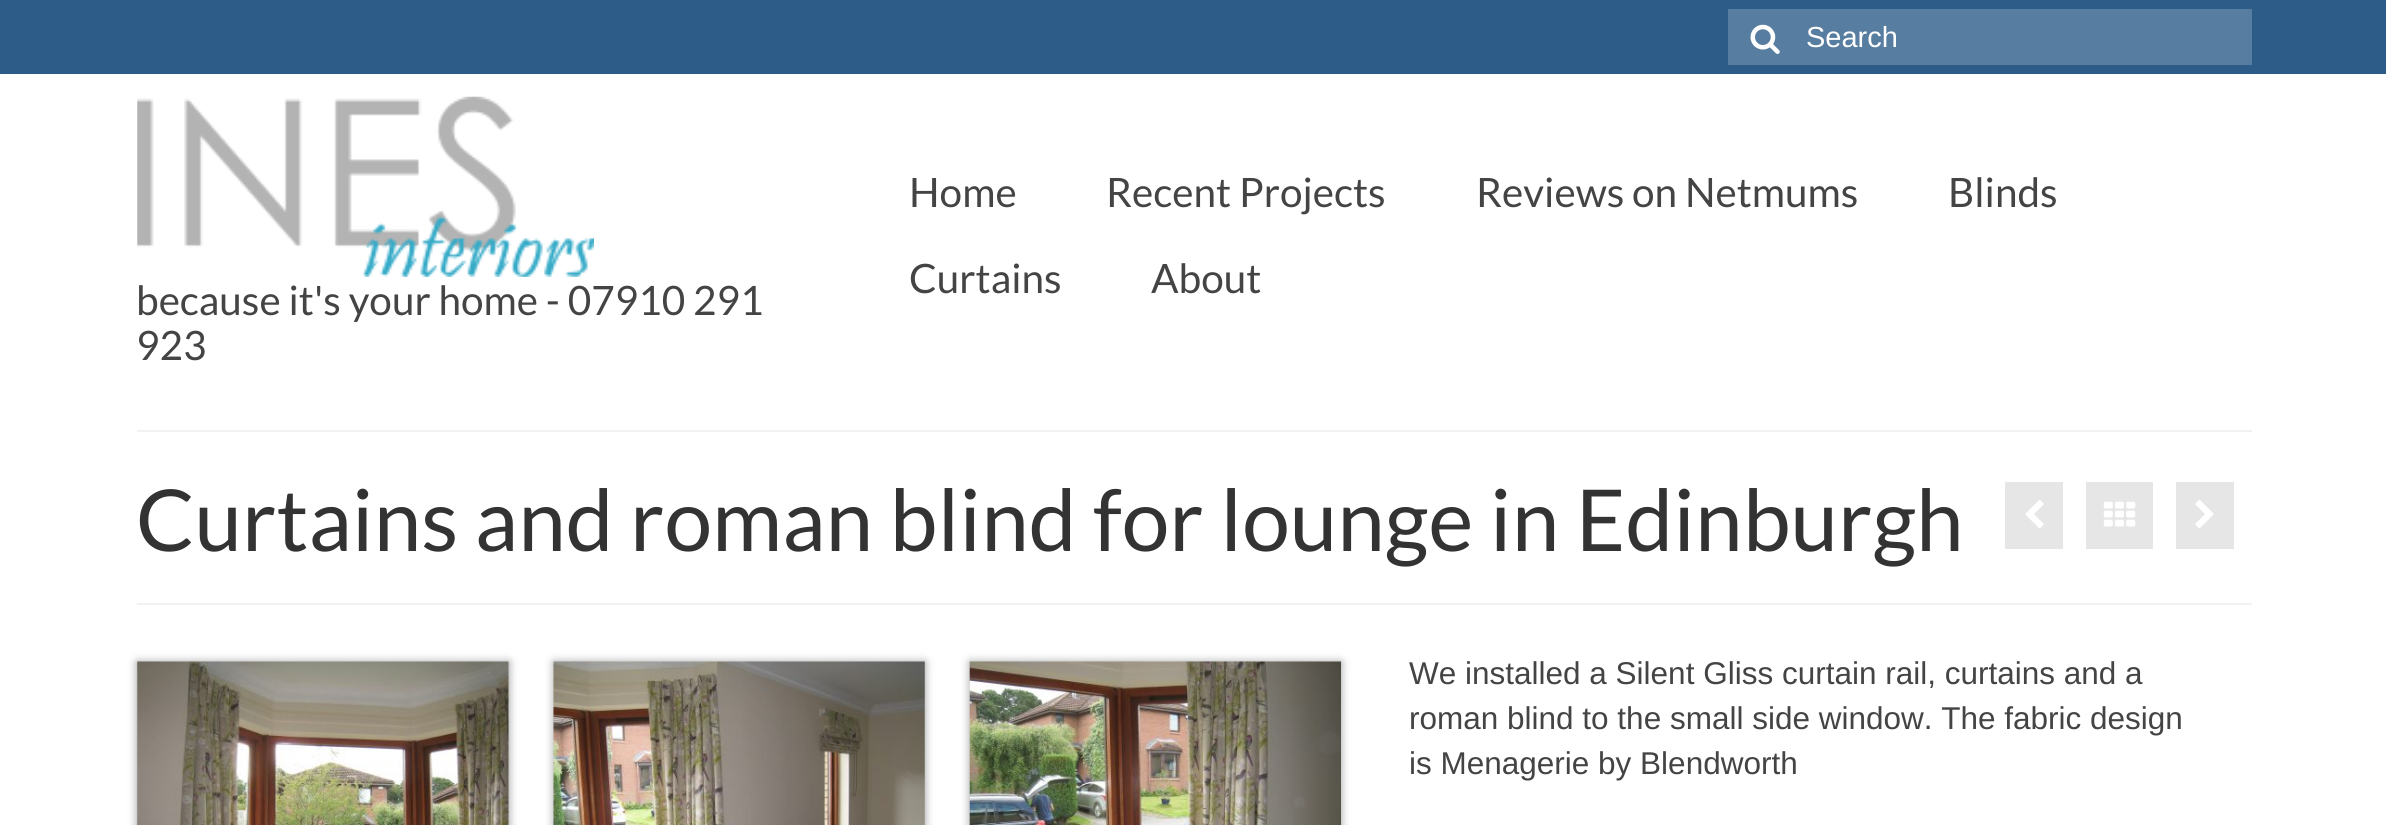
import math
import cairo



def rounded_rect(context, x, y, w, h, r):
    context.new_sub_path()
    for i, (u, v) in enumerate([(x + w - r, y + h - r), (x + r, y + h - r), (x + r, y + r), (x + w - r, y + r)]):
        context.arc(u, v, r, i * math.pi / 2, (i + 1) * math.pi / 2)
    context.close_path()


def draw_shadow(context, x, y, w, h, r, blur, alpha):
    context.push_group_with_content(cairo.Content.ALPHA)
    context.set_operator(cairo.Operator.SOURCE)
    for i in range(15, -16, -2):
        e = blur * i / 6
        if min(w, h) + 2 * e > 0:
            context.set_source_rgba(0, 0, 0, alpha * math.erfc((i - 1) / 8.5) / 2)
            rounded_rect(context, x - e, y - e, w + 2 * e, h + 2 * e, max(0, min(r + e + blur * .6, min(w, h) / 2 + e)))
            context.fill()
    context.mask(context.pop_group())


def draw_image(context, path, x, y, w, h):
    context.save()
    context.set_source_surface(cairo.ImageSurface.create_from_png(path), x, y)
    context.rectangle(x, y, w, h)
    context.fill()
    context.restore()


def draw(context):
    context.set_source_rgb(1, 1, 1)
    context.paint()
    context.set_source_rgb(45 / 255, 92 / 255, 136 / 255)
    context.rectangle(0, 0, 2386, 74)
    context.fill()
    context.set_source_rgb(87 / 255, 125 / 255, 160 / 255)
    context.rectangle(1728, 9, 524, 56)
    context.fill()
    draw_image(context, "images/1.png", 1750, 24, 30, 30)
    draw_image(context, "images/2.png", 137, 96, 457, 181)
    context.set_source_rgb(242 / 255, 242 / 255, 242 / 255)
    context.rectangle(137, 430, 2115, 2)
    context.fill()
    context.rectangle(137, 603, 2115, 2)
    context.fill()
    context.set_source_rgb(230 / 255, 230 / 255, 230 / 255)
    context.rectangle(2005, 482, 58, 67)
    context.fill()
    draw_image(context, "images/3.png", 2025, 500, 19, 29)
    context.rectangle(2086, 482, 67, 67)
    context.fill()
    draw_image(context, "images/4.png", 2103, 501, 33, 26)
    context.rectangle(2176, 482, 58, 67)
    context.fill()
    draw_image(context, "images/5.png", 2195, 500, 19, 29)
    context.set_source_rgb(0, 0, 0)
    draw_shadow(context, 137, 662, 372, 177, 0, 4.5, 0.4)
    draw_image(context, "images/6.png", 137, 661, 372, 164)
    draw_shadow(context, 554, 662, 371, 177, 0, 4.5, 0.4)
    draw_image(context, "images/7.png", 553, 661, 372, 164)
    draw_shadow(context, 970, 662, 371, 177, 0, 4.5, 0.4)
    draw_image(context, "images/8.png", 969, 661, 372, 164)
    context.select_font_face("Liberation Sans")
    context.set_font_size(29)
    context.set_source_rgb(1, 1, 1)
    context.move_to(1806, 47)
    context.show_text("Search")
    context.select_font_face("Lato")
    context.set_font_size(40.5)
    context.set_source_rgb(68 / 255, 68 / 255, 68 / 255)
    context.move_to(909, 207)
    context.show_text("Home")
    context.move_to(1106, 207)
    context.show_text("Recent Projects")
    context.move_to(1476, 207)
    context.show_text("Reviews on Netmums")
    context.move_to(1948, 207)
    context.show_text("Blinds")
    context.move_to(909, 293)
    context.show_text("Curtains")
    context.move_to(1151, 293)
    context.show_text("About")
    context.move_to(136, 315)
    context.show_text("because it's your home - 07910 291")
    context.move_to(136, 360)
    context.show_text("923")
    context.set_font_size(85.5)
    context.set_source_rgb(51 / 255, 51 / 255, 51 / 255)
    context.move_to(136, 551)
    context.show_text("Curtains and roman blind for lounge in Edinburgh")
    context.select_font_face("Liberation Sans")
    context.set_font_size(31.5)
    context.set_source_rgb(68 / 255, 68 / 255, 68 / 255)
    context.move_to(1409, 684)
    context.show_text("We installed a Silent Gliss curtain rail, curtains and a")
    context.move_to(1409, 729)
    context.show_text("roman blind to the small side window. The fabric design")
    context.move_to(1409, 774)
    context.show_text("is Menagerie by Blendworth")


surface = cairo.ImageSurface(cairo.Format.RGB24, 2386, 825)
context = cairo.Context(surface)
options = cairo.FontOptions()
options.set_hint_metrics(cairo.HintMetrics.OFF)
options.set_hint_style(cairo.HintStyle.NONE)
context.set_font_options(options)
context.set_miter_limit(4)
draw(context)
surface.write_to_png("out.png")
